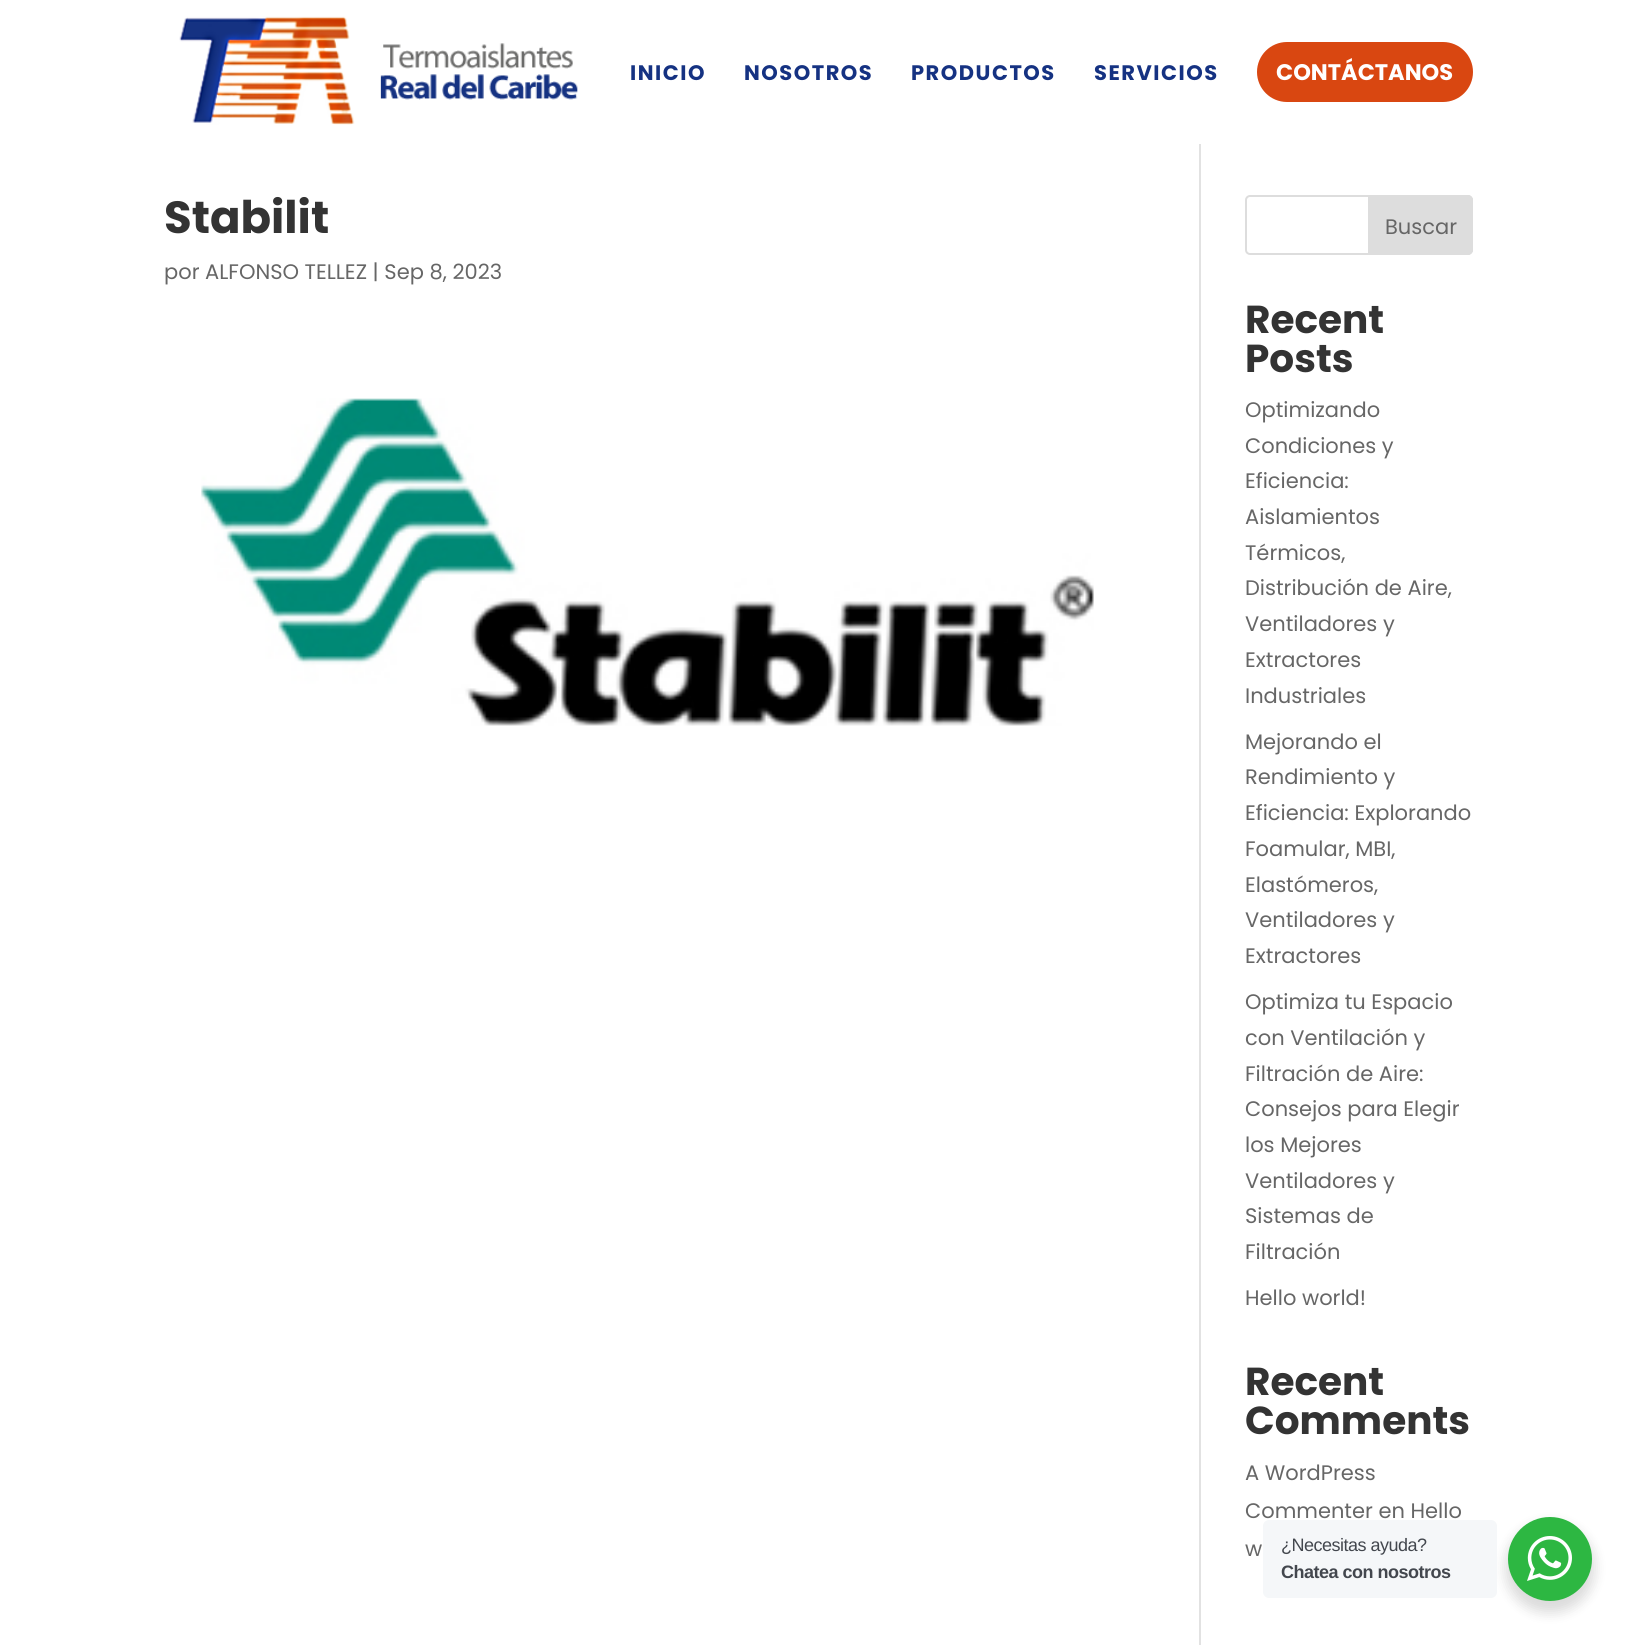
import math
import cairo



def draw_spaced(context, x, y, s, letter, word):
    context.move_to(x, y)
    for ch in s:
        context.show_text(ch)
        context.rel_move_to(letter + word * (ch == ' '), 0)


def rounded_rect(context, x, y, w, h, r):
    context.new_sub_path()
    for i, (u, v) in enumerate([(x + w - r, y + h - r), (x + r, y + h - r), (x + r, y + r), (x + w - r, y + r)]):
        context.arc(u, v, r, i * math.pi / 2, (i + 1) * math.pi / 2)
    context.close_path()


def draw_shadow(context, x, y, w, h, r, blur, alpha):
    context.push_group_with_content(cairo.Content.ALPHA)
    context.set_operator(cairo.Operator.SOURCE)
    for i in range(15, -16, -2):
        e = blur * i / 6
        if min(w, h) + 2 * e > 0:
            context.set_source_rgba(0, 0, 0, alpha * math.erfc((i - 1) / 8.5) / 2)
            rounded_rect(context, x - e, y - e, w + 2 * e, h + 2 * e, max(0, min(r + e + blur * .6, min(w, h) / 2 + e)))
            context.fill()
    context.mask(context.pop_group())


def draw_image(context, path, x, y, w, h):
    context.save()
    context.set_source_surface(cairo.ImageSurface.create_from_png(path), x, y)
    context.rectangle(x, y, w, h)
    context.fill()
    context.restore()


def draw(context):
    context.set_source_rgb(1, 1, 1)
    context.paint()
    draw_image(context, "images/1.png", 179, 16, 399, 109)
    context.set_source_rgb(217 / 255, 71 / 255, 17 / 255)
    rounded_rect(context, 1261, 46, 208, 52, 26)
    context.fill_preserve()
    context.set_line_width(8)
    context.stroke()
    context.set_source_rgb(226 / 255, 226 / 255, 226 / 255)
    context.rectangle(1199, 144, 2, 1501)
    context.fill()
    draw_image(context, "images/2.png", 201, 398, 893, 328)
    rounded_rect(context, 1246, 196, 226, 58, 4)
    context.set_source_rgb(221 / 255, 221 / 255, 221 / 255)
    context.set_line_width(2)
    context.stroke()
    context.new_path()
    context.move_to(1369, 196)
    context.line_to(1468, 196)
    context.curve_to(1470, 196, 1472, 198, 1472, 200)
    context.line_to(1472, 250)
    context.curve_to(1472, 252, 1470, 254, 1468, 254)
    context.line_to(1369, 254)
    context.close_path()
    context.fill_preserve()
    context.stroke()
    context.set_source_rgb(0, 0, 0)
    draw_shadow(context, 1505, 1523, 90, 90, 45, 6, 0.14)
    context.set_source_rgb(245 / 255, 247 / 255, 249 / 255)
    rounded_rect(context, 1263, 1520, 234, 78, 6)
    context.fill()
    context.set_source_rgb(45 / 255, 183 / 255, 66 / 255)
    context.arc(1550, 1559, 42, 0, 2 * math.pi)
    context.fill()
    draw_image(context, "images/3.png", 1527, 1536, 45, 45)
    context.select_font_face("Poppins", cairo.FontSlant.NORMAL, cairo.FontWeight.BOLD)
    context.set_font_size(21)
    context.set_source_rgb(21 / 255, 50 / 255, 130 / 255)
    draw_spaced(context, 630, 80, "INICIO", 1.5, 0)
    draw_spaced(context, 744, 80, "NOSOTROS", 1.5, 0)
    draw_spaced(context, 911, 80, "PRODUCTOS", 1.5, 0)
    draw_spaced(context, 1094, 80, "SERVICIOS", 1.5, 0)
    context.set_font_size(22.5)
    context.set_source_rgb(1, 1, 1)
    context.move_to(1276, 80)
    context.show_text("CONTÁCTANOS")
    context.set_font_size(45)
    context.set_source_rgb(51 / 255, 51 / 255, 51 / 255)
    context.move_to(164, 233)
    context.show_text("Stabilit")
    context.select_font_face("Poppins")
    context.set_font_size(21)
    context.set_source_rgb(102 / 255, 102 / 255, 102 / 255)
    context.move_to(164, 279)
    context.show_text("por ALFONSO TELLEZ | Sep 8, 2023")
    context.move_to(1385, 234)
    context.show_text("Buscar")
    context.select_font_face("Poppins", cairo.FontSlant.NORMAL, cairo.FontWeight.BOLD)
    context.set_font_size(39)
    context.set_source_rgb(51 / 255, 51 / 255, 51 / 255)
    context.move_to(1245, 333)
    context.show_text("Recent")
    context.move_to(1245, 372)
    context.show_text("Posts")
    context.select_font_face("Poppins")
    context.set_font_size(21)
    context.set_source_rgb(102 / 255, 102 / 255, 102 / 255)
    context.move_to(1245, 417)
    context.show_text("Optimizando")
    context.move_to(1245, 453)
    context.show_text("Condiciones y")
    context.move_to(1245, 488)
    context.show_text("Eficiencia:")
    context.move_to(1245, 524)
    context.show_text("Aislamientos")
    context.move_to(1245, 560)
    context.show_text("Térmicos,")
    context.move_to(1245, 595)
    context.show_text("Distribución de Aire,")
    context.move_to(1245, 631)
    context.show_text("Ventiladores y")
    context.move_to(1245, 667)
    context.show_text("Extractores")
    context.move_to(1245, 703)
    context.show_text("Industriales")
    context.move_to(1245, 749)
    context.show_text("Mejorando el")
    context.move_to(1245, 784)
    context.show_text("Rendimiento y")
    context.move_to(1245, 820)
    context.show_text("Eficiencia: Explorando")
    context.move_to(1245, 856)
    context.show_text("Foamular, MBI,")
    context.move_to(1245, 892)
    context.show_text("Elastómeros,")
    context.move_to(1245, 927)
    context.show_text("Ventiladores y")
    context.move_to(1245, 963)
    context.show_text("Extractores")
    context.move_to(1245, 1009)
    context.show_text("Optimiza tu Espacio")
    context.move_to(1245, 1045)
    context.show_text("con Ventilación y")
    context.move_to(1245, 1081)
    context.show_text("Filtración de Aire:")
    context.move_to(1245, 1116)
    context.show_text("Consejos para Elegir")
    context.move_to(1245, 1152)
    context.show_text("los Mejores")
    context.move_to(1245, 1188)
    context.show_text("Ventiladores y")
    context.move_to(1245, 1223)
    context.show_text("Sistemas de")
    context.move_to(1245, 1259)
    context.show_text("Filtración")
    context.move_to(1245, 1305)
    context.show_text("Hello world!")
    context.select_font_face("Poppins", cairo.FontSlant.NORMAL, cairo.FontWeight.BOLD)
    context.set_font_size(39)
    context.set_source_rgb(51 / 255, 51 / 255, 51 / 255)
    context.move_to(1245, 1395)
    context.show_text("Recent")
    context.move_to(1245, 1434)
    context.show_text("Comments")
    context.select_font_face("Poppins")
    context.set_font_size(21)
    context.set_source_rgb(102 / 255, 102 / 255, 102 / 255)
    context.move_to(1245, 1480)
    context.show_text("A WordPress")
    context.move_to(1245, 1518)
    context.show_text("Commenter en Hello")
    context.move_to(1245, 1556)
    context.show_text("w")
    context.select_font_face("Liberation Sans")
    context.set_font_size(18)
    context.set_source_rgb(67 / 255, 71 / 255, 78 / 255)
    draw_spaced(context, 1281, 1551, "¿Necesitas ayuda?", -0.5, 0)
    context.select_font_face("Liberation Sans", cairo.FontSlant.NORMAL, cairo.FontWeight.BOLD)
    draw_spaced(context, 1281, 1578, "Chatea con nosotros", -0.5, 0)


surface = cairo.ImageSurface(cairo.Format.RGB24, 1636, 1645)
context = cairo.Context(surface)
options = cairo.FontOptions()
options.set_hint_metrics(cairo.HintMetrics.OFF)
options.set_hint_style(cairo.HintStyle.NONE)
context.set_font_options(options)
context.set_miter_limit(4)
draw(context)
surface.write_to_png("out.png")
